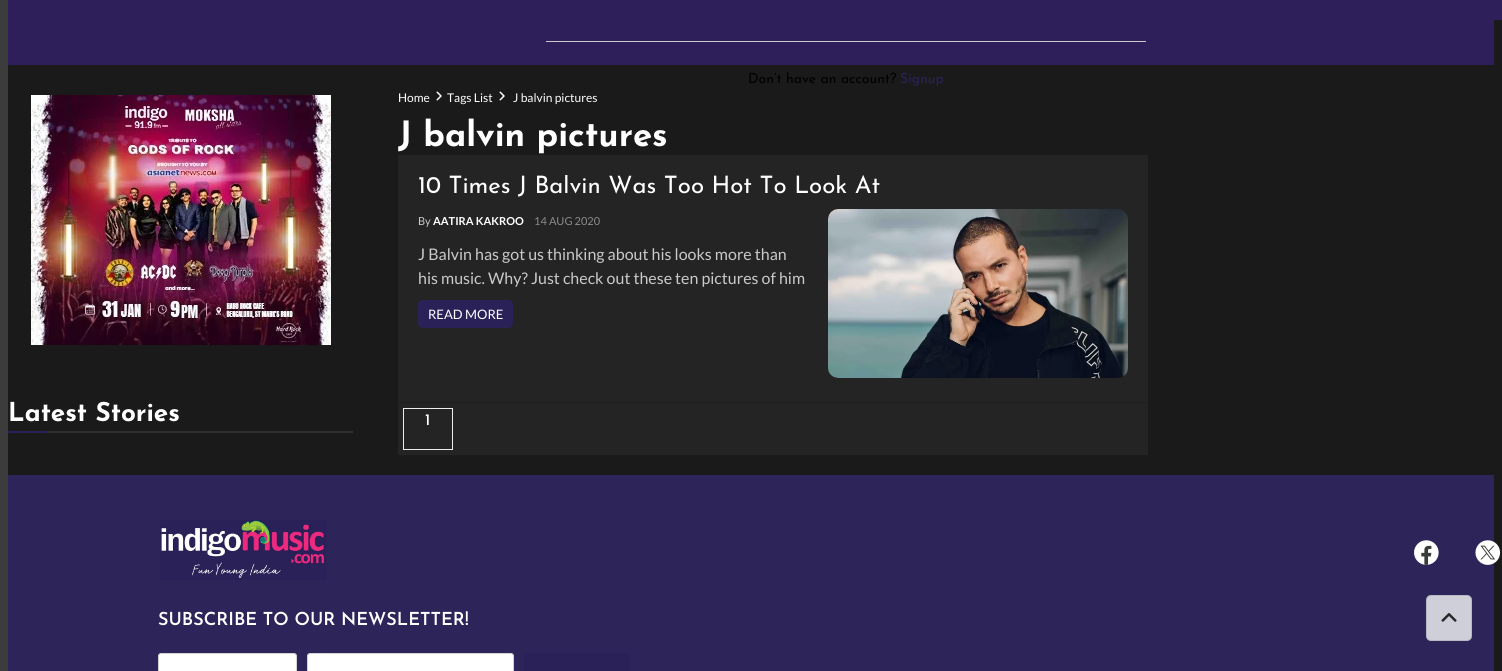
import math
import cairo



def rounded_rect(context, x, y, w, h, r):
    context.new_sub_path()
    for i, (u, v) in enumerate([(x + w - r, y + h - r), (x + r, y + h - r), (x + r, y + r), (x + w - r, y + r)]):
        context.arc(u, v, r, i * math.pi / 2, (i + 1) * math.pi / 2)
    context.close_path()


def draw_image(context, path, x, y, w, h):
    context.save()
    context.set_source_surface(cairo.ImageSurface.create_from_png(path), x, y)
    context.rectangle(x, y, w, h)
    context.fill()
    context.restore()


def draw(context):
    context.set_source_rgb(26 / 255, 26 / 255, 26 / 255)
    context.paint()
    context.set_source_rgb(60 / 255, 60 / 255, 60 / 255)
    context.rectangle(0, 0, 8, 671)
    context.fill()
    context.set_source_rgb(46 / 255, 31 / 255, 90 / 255)
    context.rectangle(8, 0, 1494, 20)
    context.fill()
    context.rectangle(8, 20, 1486, 45)
    context.fill()
    context.set_source_rgb(202 / 255, 202 / 255, 202 / 255)
    context.rectangle(546, 41, 600, 1)
    context.fill()
    draw_image(context, "images/1.png", 31, 95, 300, 250)
    context.set_source_rgb(43 / 255, 33 / 255, 89 / 255)
    context.rectangle(8, 431, 40, 2)
    context.fill()
    context.set_source_rgb(48 / 255, 48 / 255, 48 / 255)
    context.rectangle(48, 431, 305, 2)
    context.fill()
    draw_image(context, "images/2.png", 436, 91, 6, 10)
    draw_image(context, "images/2.png", 499, 91, 6, 10)
    context.set_source_rgb(36 / 255, 36 / 255, 36 / 255)
    context.rectangle(398, 155, 750, 300)
    context.fill()
    context.set_source_rgb(30 / 255, 30 / 255, 30 / 255)
    context.rectangle(398, 402, 750, 1)
    context.fill()
    draw_image(context, "images/3.png", 828, 209, 300, 169)
    context.set_source_rgb(43 / 255, 33 / 255, 89 / 255)
    rounded_rect(context, 418, 300, 95, 28, 5)
    context.fill()
    context.rectangle(403.5, 408.5, 49, 41)
    context.set_source_rgb(238 / 255, 238 / 255, 238 / 255)
    context.set_line_width(1)
    context.stroke()
    context.set_source_rgb(45 / 255, 37 / 255, 89 / 255)
    context.rectangle(8, 475, 1486, 196)
    context.fill()
    draw_image(context, "images/4.png", 1414, 540, 25, 25)
    draw_image(context, "images/5.png", 1475, 540, 26, 25)
    draw_image(context, "images/6.png", 160, 520, 167, 60)
    context.set_source_rgb(1, 1, 1)
    rounded_rect(context, 158.5, 653.5, 138, 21, 2.5)
    context.fill_preserve()
    context.set_source_rgb(211 / 255, 211 / 255, 211 / 255)
    context.stroke()
    context.set_source_rgb(1, 1, 1)
    rounded_rect(context, 307.5, 653.5, 206, 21, 2.5)
    context.fill_preserve()
    context.set_source_rgb(211 / 255, 211 / 255, 211 / 255)
    context.stroke()
    context.set_source_rgb(43 / 255, 33 / 255, 89 / 255)
    rounded_rect(context, 524, 653, 106, 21, 3)
    context.fill()
    context.set_source_rgb(207 / 255, 207 / 255, 218 / 255)
    rounded_rect(context, 1426, 595, 46, 46, 5)
    context.fill()
    rounded_rect(context, 1426.5, 595.5, 45, 45, 4.5)
    context.set_source_rgba(9 / 255, 7 / 255, 18 / 255, 0.11)
    context.stroke()
    draw_image(context, "images/7.png", 1441, 613, 16, 9)
    context.select_font_face("Josefin Sans")
    context.set_font_size(14)
    context.set_source_rgb(0, 0, 0)
    context.move_to(748, 83)
    context.show_text("Don’t have an account?")
    context.set_source_rgb(43 / 255, 33 / 255, 89 / 255)
    context.move_to(900, 83)
    context.show_text("Signup")
    context.select_font_face("Josefin Sans", cairo.FontSlant.NORMAL, cairo.FontWeight.BOLD)
    context.set_font_size(26)
    context.set_source_rgb(1, 1, 1)
    context.move_to(8, 421)
    context.show_text("Latest Stories")
    context.select_font_face("Lato")
    context.set_font_size(12)
    context.move_to(398, 102)
    context.show_text("Home")
    context.move_to(447, 102)
    context.show_text("Tags List")
    context.move_to(513, 102)
    context.show_text("J balvin pictures")
    context.select_font_face("Josefin Sans", cairo.FontSlant.NORMAL, cairo.FontWeight.BOLD)
    context.set_font_size(34.75)
    context.move_to(398, 146)
    context.show_text("J balvin pictures")
    context.save()
    context.rectangle(418, 175, 710, 24)
    context.clip()
    context.select_font_face("Josefin Sans")
    context.set_font_size(24)
    context.move_to(418, 193)
    context.show_text("10 Times J Balvin Was Too Hot To Look At")
    context.restore()
    context.select_font_face("Lato")
    context.set_font_size(11)
    context.set_source_rgb(202 / 255, 202 / 255, 202 / 255)
    context.move_to(418, 225)
    context.show_text("By")
    context.select_font_face("Lato", cairo.FontSlant.NORMAL, cairo.FontWeight.BOLD)
    context.set_source_rgb(1, 1, 1)
    context.move_to(433, 225)
    context.show_text("AATIRA KAKROO")
    context.select_font_face("Lato")
    context.set_source_rgb(139 / 255, 139 / 255, 139 / 255)
    context.move_to(534, 225)
    context.show_text("14 AUG 2020")
    context.set_font_size(16)
    context.set_source_rgb(202 / 255, 202 / 255, 202 / 255)
    context.move_to(418, 260)
    context.show_text("J Balvin has got us thinking about his looks more than")
    context.move_to(418, 284)
    context.show_text("his music. Why? Just check out these ten pictures of him")
    context.set_font_size(13)
    context.set_source_rgb(1, 1, 1)
    context.move_to(428, 319)
    context.show_text("READ MORE")
    context.select_font_face("Josefin Sans Medium")
    context.set_font_size(16)
    context.move_to(425, 425)
    context.show_text("1")
    context.select_font_face("Josefin Sans SemiBold")
    context.set_font_size(18)
    context.move_to(158, 625)
    context.show_text("SUBSCRIBE TO OUR NEWSLETTER!")


surface = cairo.ImageSurface(cairo.Format.RGB24, 1502, 671)
context = cairo.Context(surface)
options = cairo.FontOptions()
options.set_hint_metrics(cairo.HintMetrics.OFF)
options.set_hint_style(cairo.HintStyle.NONE)
context.set_font_options(options)
context.set_miter_limit(4)
draw(context)
surface.write_to_png("out.png")
